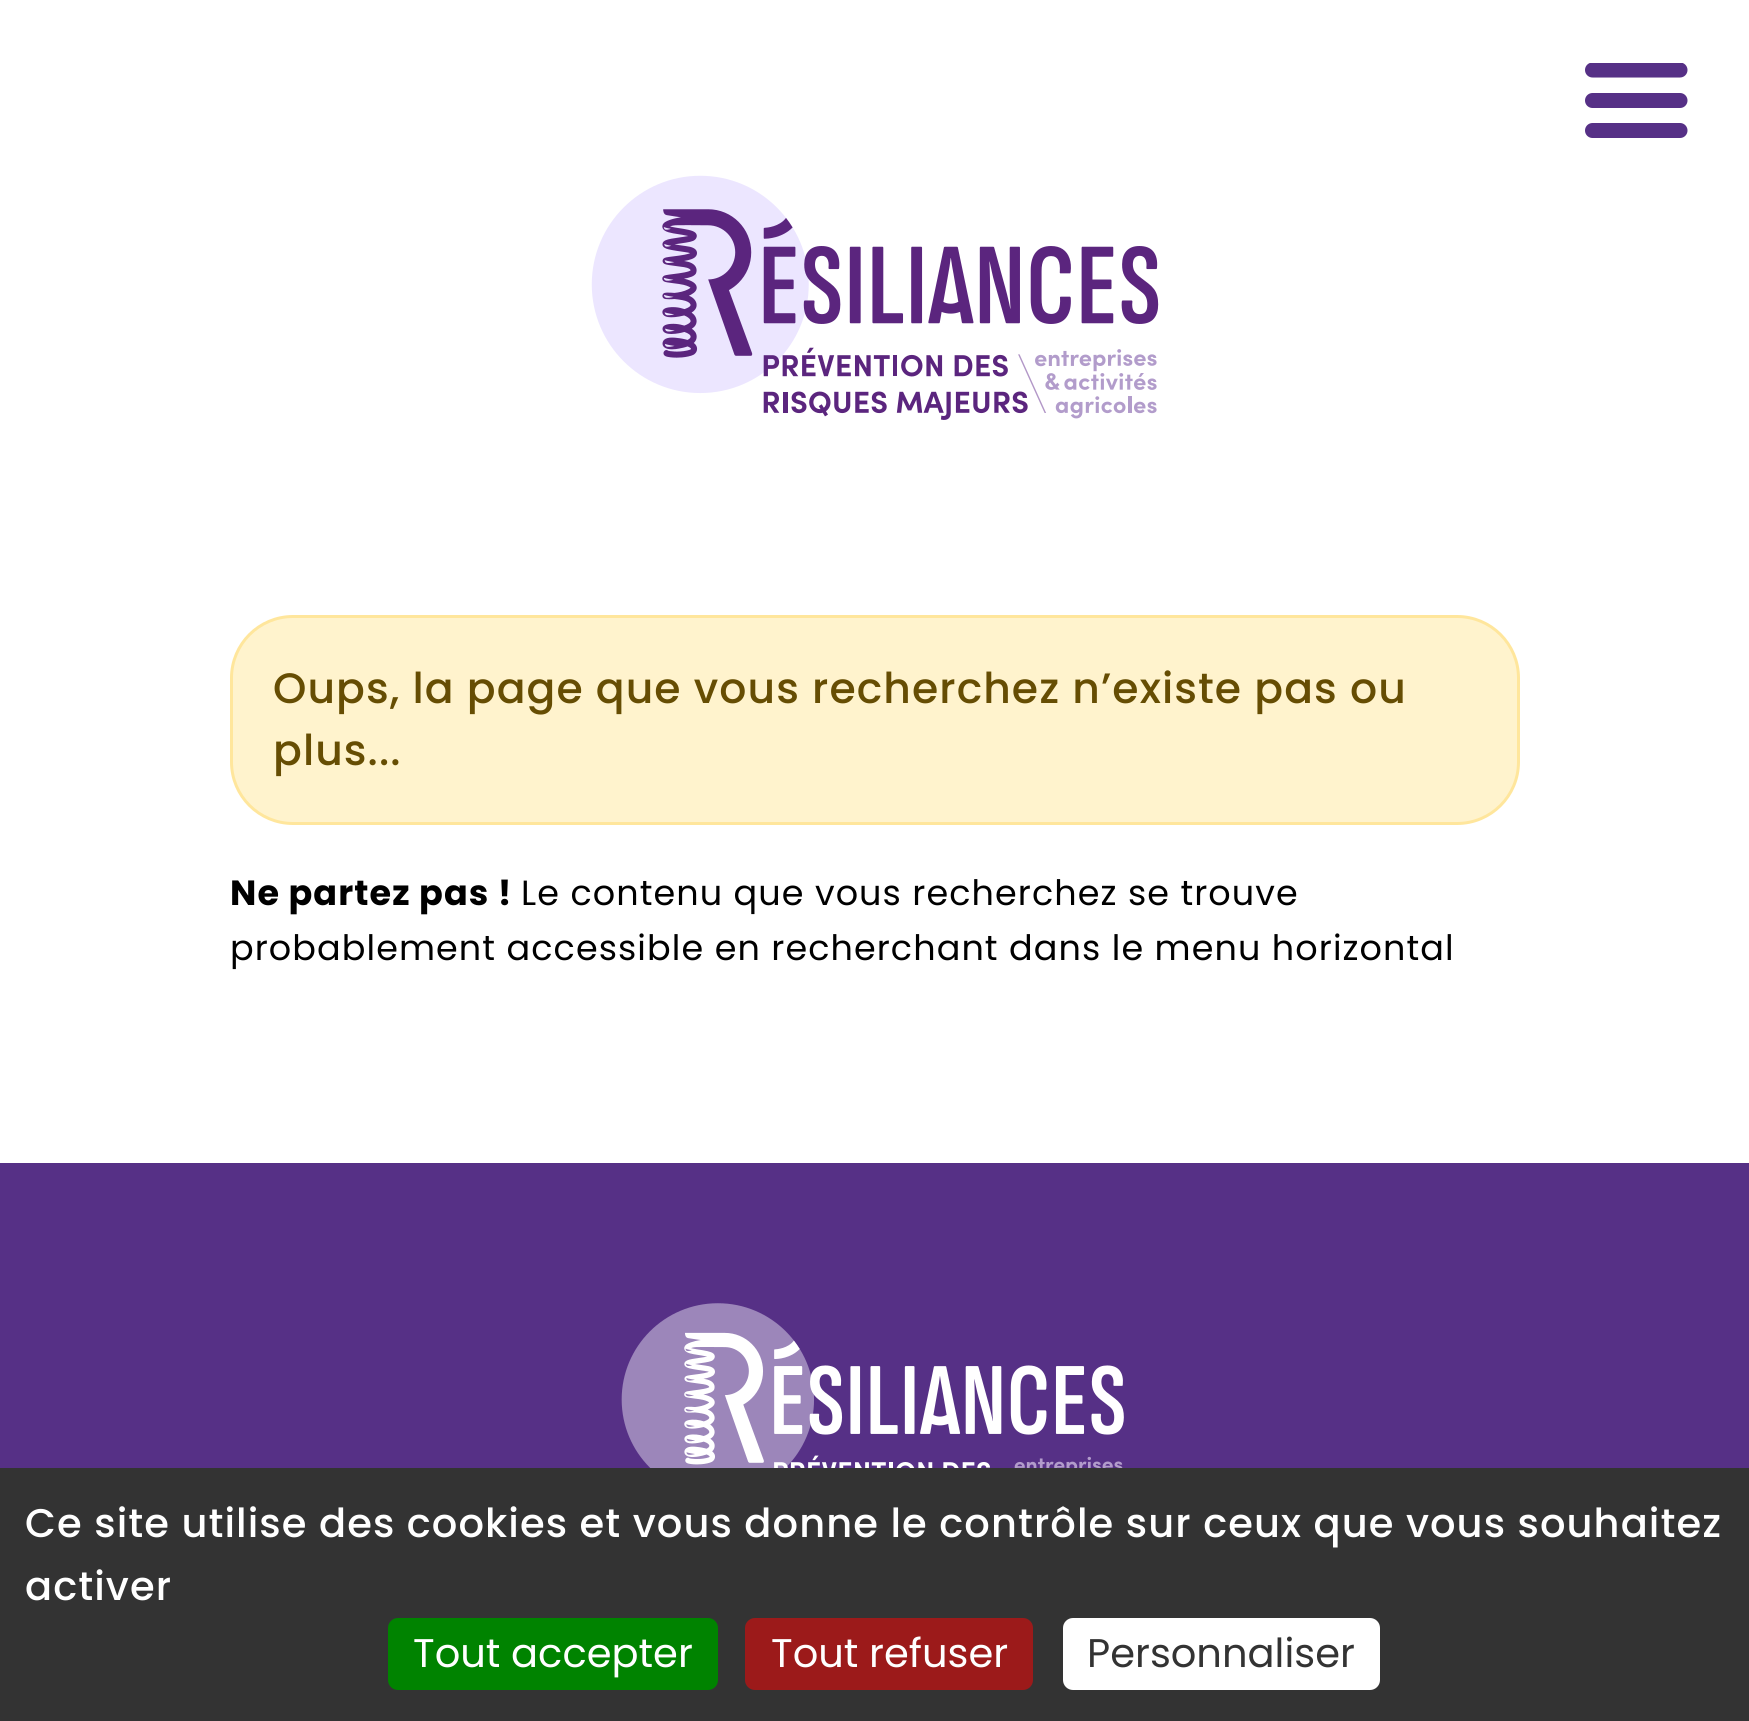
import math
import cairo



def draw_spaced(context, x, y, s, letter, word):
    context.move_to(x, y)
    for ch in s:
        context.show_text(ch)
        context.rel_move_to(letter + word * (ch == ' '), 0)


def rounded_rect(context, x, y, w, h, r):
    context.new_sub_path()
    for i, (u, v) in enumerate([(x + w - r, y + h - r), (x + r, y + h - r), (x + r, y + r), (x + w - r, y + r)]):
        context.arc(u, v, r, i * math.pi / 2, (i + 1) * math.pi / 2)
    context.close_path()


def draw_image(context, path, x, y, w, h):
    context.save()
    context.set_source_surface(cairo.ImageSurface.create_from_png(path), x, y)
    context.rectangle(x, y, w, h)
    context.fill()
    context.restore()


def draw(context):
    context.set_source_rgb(1, 1, 1)
    context.paint()
    context.save()
    context.rectangle(1585, 63, 103, 77)
    context.clip()
    context.new_path()
    context.move_to(1592.5, 70)
    context.line_to(1680, 70)
    context.set_source_rgb(86 / 255, 48 / 255, 134 / 255)
    context.set_line_width(15)
    context.set_line_cap(cairo.LineCap.ROUND)
    context.stroke()
    context.restore()
    context.new_path()
    context.move_to(1592.5, 100.5)
    context.line_to(1680, 100.5)
    context.set_source_rgb(86 / 255, 48 / 255, 134 / 255)
    context.set_line_width(15)
    context.set_line_cap(cairo.LineCap.ROUND)
    context.stroke()
    context.new_path()
    context.move_to(1592.5, 130.5)
    context.line_to(1680, 130.5)
    context.stroke()
    draw_image(context, "images/1.png", 591, 175, 568, 245)
    context.set_source_rgb(1, 243 / 255, 205 / 255)
    rounded_rect(context, 231.5, 616.5, 1287, 207, 61.5)
    context.fill_preserve()
    context.set_source_rgb(1, 230 / 255, 156 / 255)
    context.set_line_width(3)
    context.set_line_cap(cairo.LineCap.BUTT)
    context.stroke()
    context.set_source_rgb(86 / 255, 48 / 255, 134 / 255)
    context.rectangle(0, 1163, 1749, 305)
    context.fill()
    draw_image(context, "images/2.png", 621, 1303, 503, 165)
    context.set_source_rgb(51 / 255, 51 / 255, 51 / 255)
    context.rectangle(0, 1468, 1749, 253)
    context.fill()
    context.set_source_rgb(0, 131 / 255, 0)
    rounded_rect(context, 388, 1618, 330, 72, 10)
    context.fill()
    context.set_source_rgb(156 / 255, 26 / 255, 26 / 255)
    rounded_rect(context, 745, 1618, 288, 72, 10)
    context.fill()
    context.set_source_rgb(1, 1, 1)
    rounded_rect(context, 1063, 1618, 317, 72, 10)
    context.fill()
    context.select_font_face("Poppins Medium")
    context.set_font_size(42.5)
    context.set_source_rgb(102 / 255, 77 / 255, 3 / 255)
    draw_spaced(context, 273, 703, "Oups, la page que vous recherchez n’existe pas ou", 1.07, 0)
    draw_spaced(context, 273, 765, "plus...", 1.07, 0)
    context.select_font_face("Poppins", cairo.FontSlant.NORMAL, cairo.FontWeight.BOLD)
    context.set_font_size(35)
    context.set_source_rgb(0, 0, 0)
    draw_spaced(context, 230, 905, "Ne partez pas !", 1.07, 0)
    context.select_font_face("Poppins")
    draw_spaced(context, 521, 905, "Le contenu que vous recherchez se trouve", 1.07, 0)
    draw_spaced(context, 230, 960, "probablement accessible en recherchant dans le menu horizontal", 1.07, 0)
    context.select_font_face("Poppins Medium")
    context.set_font_size(40)
    context.set_source_rgb(1, 1, 1)
    draw_spaced(context, 25, 1537, "Ce site utilise des cookies et vous donne le contrôle sur ceux que vous souhaitez", 1.07, 0)
    draw_spaced(context, 25, 1600, "activer", 1.07, 0)
    context.select_font_face("Poppins")
    context.move_to(413, 1667)
    context.show_text("Tout accepter")
    context.move_to(771, 1667)
    context.show_text("Tout refuser")
    context.set_source_rgb(51 / 255, 51 / 255, 51 / 255)
    context.move_to(1087, 1667)
    context.show_text("Personnaliser")


surface = cairo.ImageSurface(cairo.Format.RGB24, 1749, 1721)
context = cairo.Context(surface)
options = cairo.FontOptions()
options.set_hint_metrics(cairo.HintMetrics.OFF)
options.set_hint_style(cairo.HintStyle.NONE)
context.set_font_options(options)
context.set_miter_limit(4)
draw(context)
surface.write_to_png("out.png")
